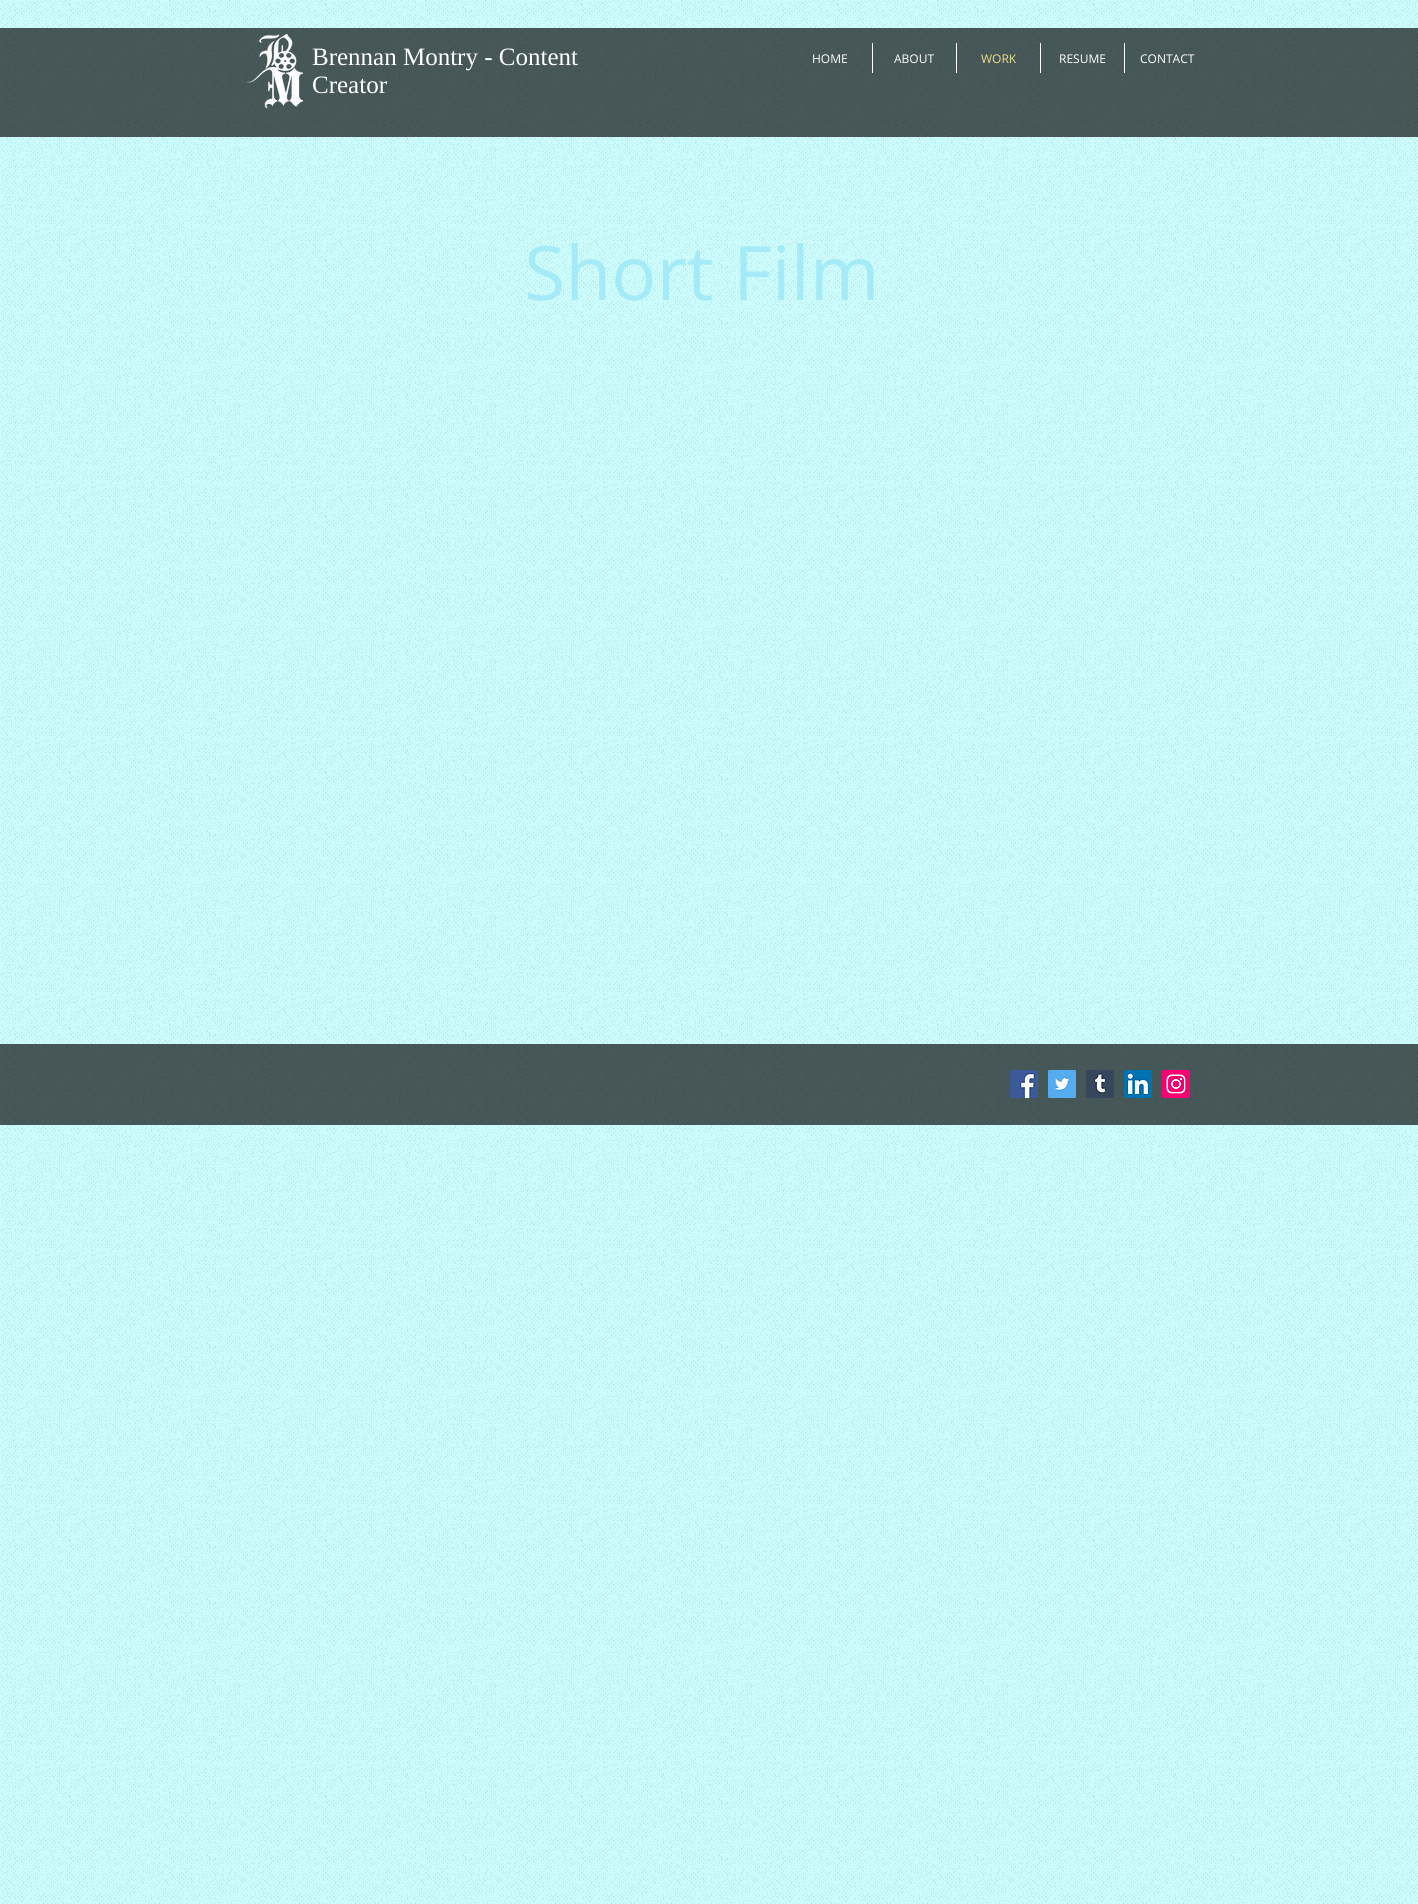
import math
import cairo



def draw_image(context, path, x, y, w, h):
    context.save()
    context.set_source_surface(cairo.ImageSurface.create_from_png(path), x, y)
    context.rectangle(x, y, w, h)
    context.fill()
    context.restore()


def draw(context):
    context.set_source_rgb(207 / 255, 1, 1)
    context.paint()
    draw_image(context, "images/1.png", 0, 0, 1418, 1904)
    context.set_source_rgba(0, 0, 0, 0.65)
    context.rectangle(0, 28, 1418, 109)
    context.fill()
    draw_image(context, "images/2.png", 247, 34, 56, 74)
    context.set_source_rgb(1, 1, 1)
    context.rectangle(872, 43, 1, 30)
    context.fill()
    context.rectangle(956, 43, 1, 30)
    context.fill()
    context.rectangle(1040, 43, 1, 30)
    context.fill()
    context.rectangle(1124, 43, 1, 30)
    context.fill()
    context.set_source_rgba(0, 0, 0, 0.65)
    context.rectangle(0, 1044, 1418, 81)
    context.fill()
    draw_image(context, "images/3.png", 1010, 1070, 28, 28)
    draw_image(context, "images/4.png", 1048, 1070, 28, 28)
    draw_image(context, "images/5.png", 1086, 1070, 28, 28)
    draw_image(context, "images/6.png", 1124, 1070, 28, 28)
    draw_image(context, "images/7.png", 1162, 1070, 28, 28)
    context.select_font_face("Liberation Serif")
    context.set_font_size(25)
    context.set_source_rgb(1, 1, 1)
    context.move_to(312, 65)
    context.show_text("Brennan Montry - Content")
    context.move_to(312, 93)
    context.show_text("Creator")
    context.select_font_face("Open Sans")
    context.set_font_size(12)
    context.move_to(812, 63)
    context.show_text("HOME")
    context.move_to(894, 63)
    context.show_text("ABOUT")
    context.set_source_rgb(239 / 255, 221 / 255, 141 / 255)
    context.move_to(981, 63)
    context.show_text("WORK")
    context.set_source_rgb(1, 1, 1)
    context.move_to(1059, 63)
    context.show_text("RESUME")
    context.move_to(1140, 63)
    context.show_text("CONTACT")
    context.set_font_size(75)
    context.set_source_rgb(164 / 255, 234 / 255, 247 / 255)
    context.move_to(524, 300)
    context.show_text("Short Film")


surface = cairo.ImageSurface(cairo.Format.RGB24, 1418, 1904)
context = cairo.Context(surface)
options = cairo.FontOptions()
options.set_hint_metrics(cairo.HintMetrics.OFF)
options.set_hint_style(cairo.HintStyle.NONE)
context.set_font_options(options)
context.set_miter_limit(4)
draw(context)
surface.write_to_png("out.png")
